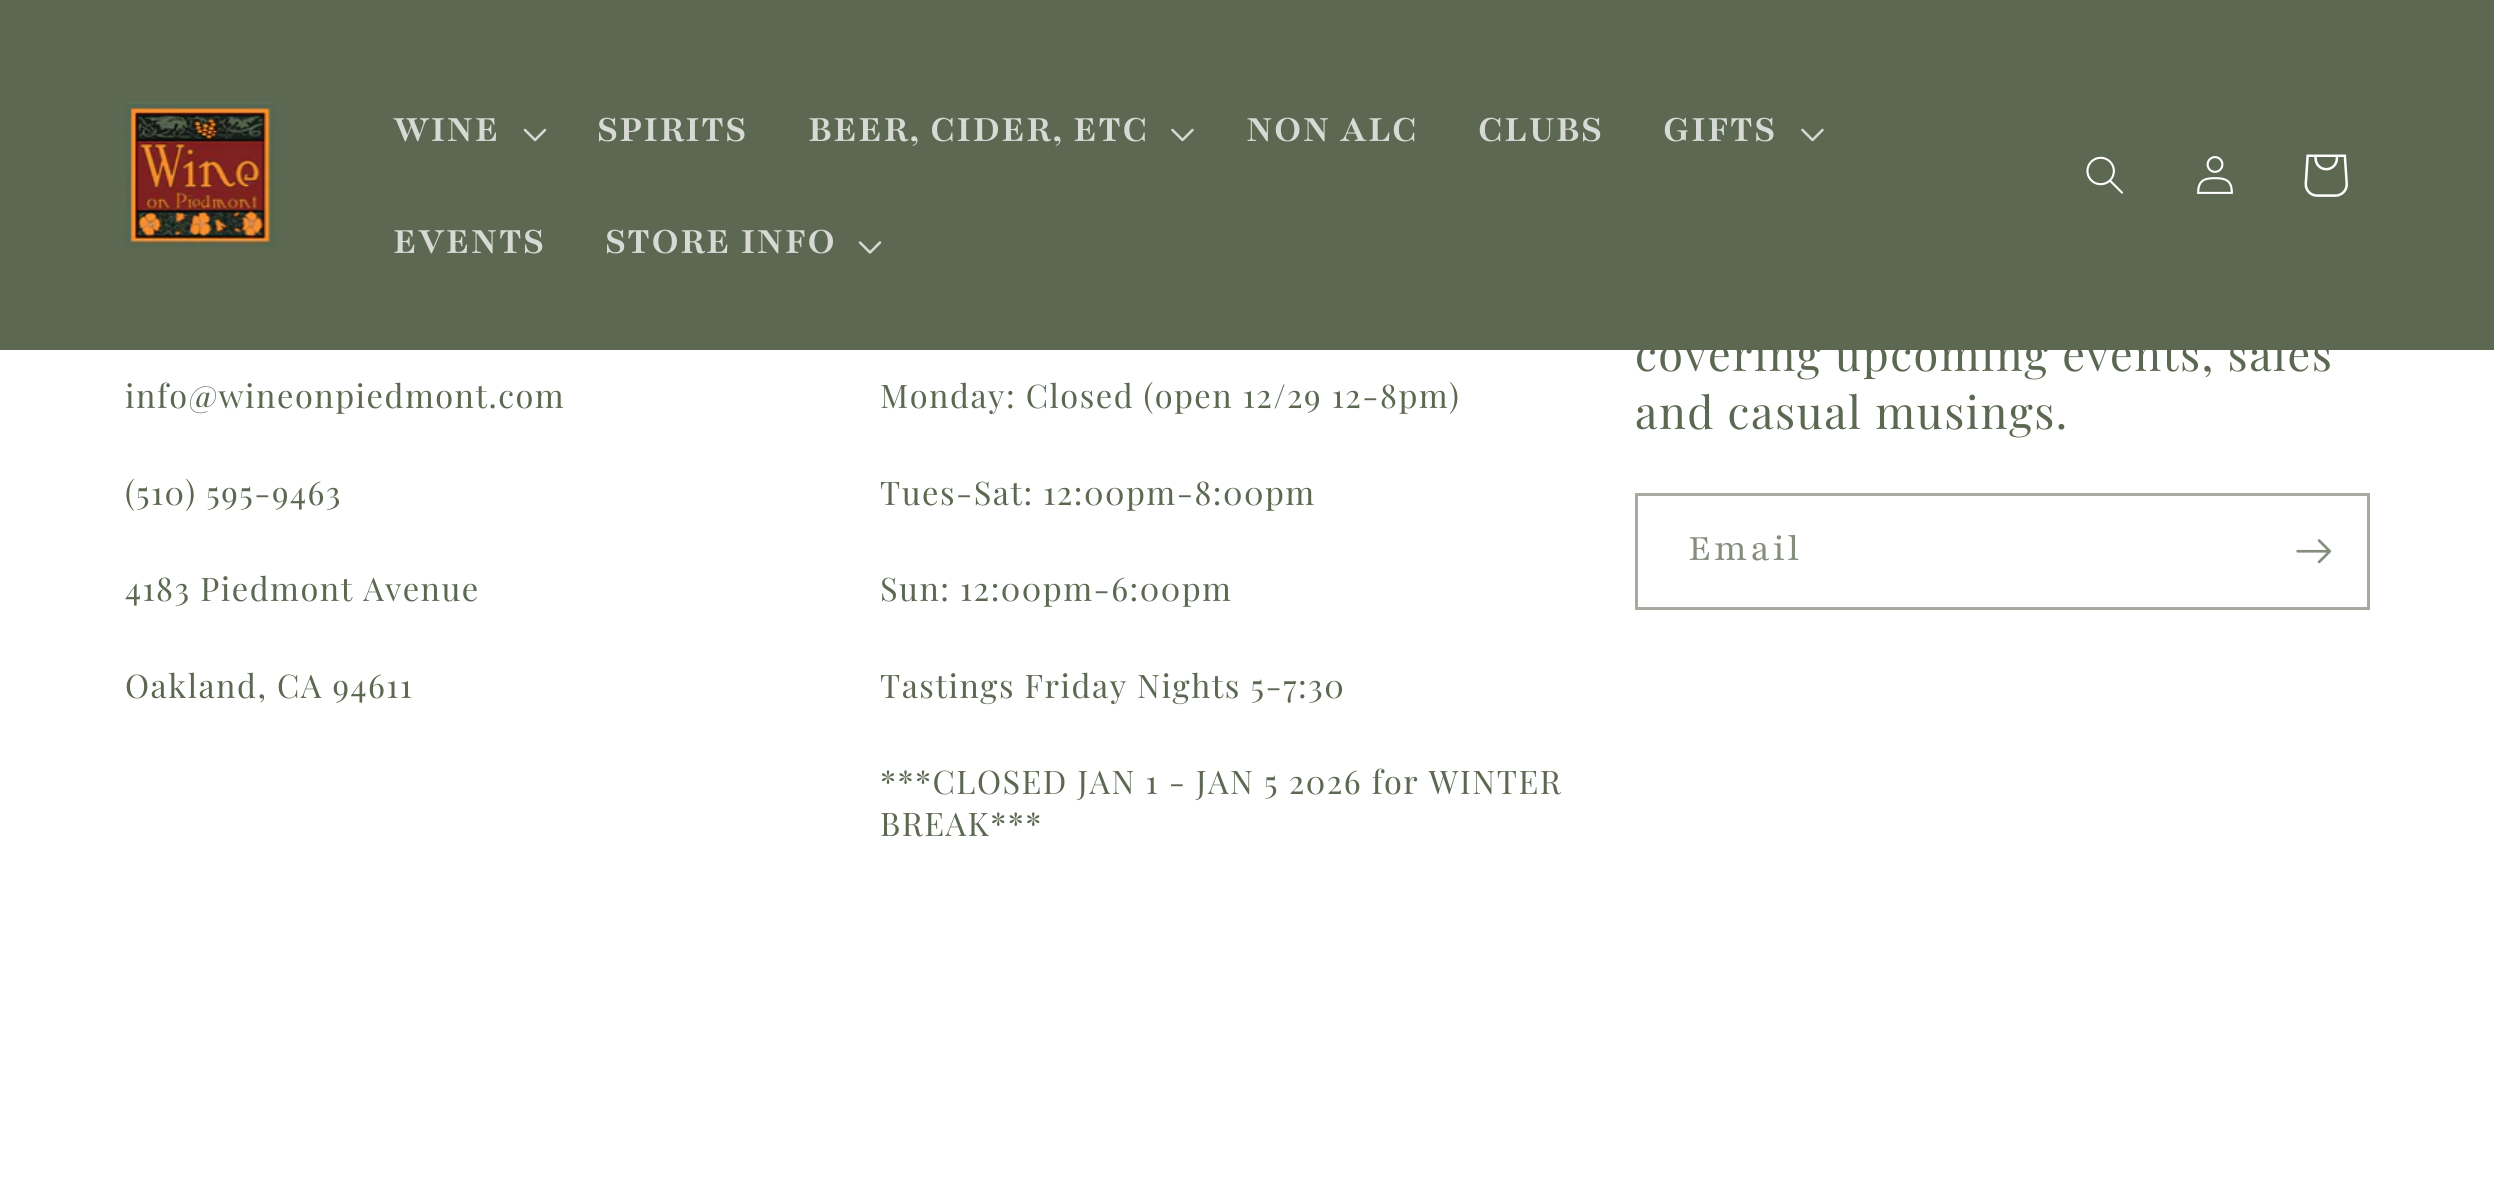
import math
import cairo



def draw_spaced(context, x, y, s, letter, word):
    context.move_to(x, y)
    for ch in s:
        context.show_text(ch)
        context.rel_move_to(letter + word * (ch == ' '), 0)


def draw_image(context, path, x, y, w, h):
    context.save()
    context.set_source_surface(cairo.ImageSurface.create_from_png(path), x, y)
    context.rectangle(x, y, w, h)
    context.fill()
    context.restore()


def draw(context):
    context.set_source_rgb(1, 1, 1)
    context.paint()
    context.set_source_rgb(92 / 255, 104 / 255, 81 / 255)
    context.rectangle(0, 0, 2494, 350)
    context.fill()
    draw_image(context, "images/1.png", 125, 102, 150, 146)
    draw_image(context, "images/2.png", 523, 128, 24, 14)
    draw_image(context, "images/3.png", 1171, 128, 23, 14)
    draw_image(context, "images/3.png", 1801, 128, 23, 14)
    draw_image(context, "images/4.png", 858, 241, 24, 13)
    draw_image(context, "images/5.png", 2086, 156, 37, 38)
    draw_image(context, "images/6.png", 2197, 156, 36, 38)
    draw_image(context, "images/7.png", 2304, 154, 44, 43)
    context.rectangle(1636.5, 494.5, 732, 114)
    context.set_source_rgb(165 / 255, 172 / 255, 159 / 255)
    context.set_line_width(3)
    context.stroke()
    draw_image(context, "images/8.png", 2296, 539, 36, 25)
    context.select_font_face("Playfair", cairo.FontSlant.NORMAL, cairo.FontWeight.BOLD)
    context.set_font_size(40)
    context.set_source_rgb(214 / 255, 217 / 255, 212 / 255)
    draw_spaced(context, 393, 141, "WINE", 1.5, 0)
    draw_spaced(context, 597, 141, "SPIRITS", 1.5, 0)
    draw_spaced(context, 808, 141, "BEER, CIDER, ETC", 1.5, 0)
    draw_spaced(context, 1246, 141, "NON ALC", 1.5, 0)
    draw_spaced(context, 1478, 141, "CLUBS", 1.5, 0)
    draw_spaced(context, 1663, 141, "GIFTS", 1.5, 0)
    draw_spaced(context, 393, 253, "EVENTS", 1.5, 0)
    draw_spaced(context, 605, 253, "STORE INFO", 1.5, 0)
    context.select_font_face("Playfair Display")
    context.set_font_size(32.5)
    context.set_source_rgb(92 / 255, 104 / 255, 81 / 255)
    draw_spaced(context, 125, 408, "info@wineonpiedmont.com", 1.5, 0)
    draw_spaced(context, 125, 505, "(510) 595-9463", 1.5, 0)
    draw_spaced(context, 125, 601, "4183 Piedmont Avenue", 1.5, 0)
    draw_spaced(context, 125, 698, "Oakland, CA 94611", 1.5, 0)
    draw_spaced(context, 880, 408, "Monday: Closed (open 12/29 12-8pm)", 1.5, 0)
    draw_spaced(context, 880, 505, "Tues-Sat: 12:00pm-8:00pm", 1.5, 0)
    draw_spaced(context, 880, 601, "Sun: 12:00pm-6:00pm", 1.5, 0)
    draw_spaced(context, 880, 698, "Tastings Friday Nights 5-7:30", 1.5, 0)
    draw_spaced(context, 880, 794, "***CLOSED JAN 1 - JAN 5 2026 for WINTER", 1.5, 0)
    draw_spaced(context, 880, 836, "BREAK***", 1.5, 0)
    context.set_font_size(45)
    draw_spaced(context, 1635, 371, "covering upcoming events, sales", 1.5, 0)
    draw_spaced(context, 1635, 429, "and casual musings.", 1.5, 0)
    context.select_font_face("Playfair")
    context.set_font_size(40)
    context.set_source_rgb(133 / 255, 142 / 255, 125 / 255)
    draw_spaced(context, 1688, 560, "Email", 2.5, 0)


surface = cairo.ImageSurface(cairo.Format.RGB24, 2494, 1197)
context = cairo.Context(surface)
options = cairo.FontOptions()
options.set_hint_metrics(cairo.HintMetrics.OFF)
options.set_hint_style(cairo.HintStyle.NONE)
context.set_font_options(options)
context.set_miter_limit(4)
draw(context)
surface.write_to_png("out.png")
